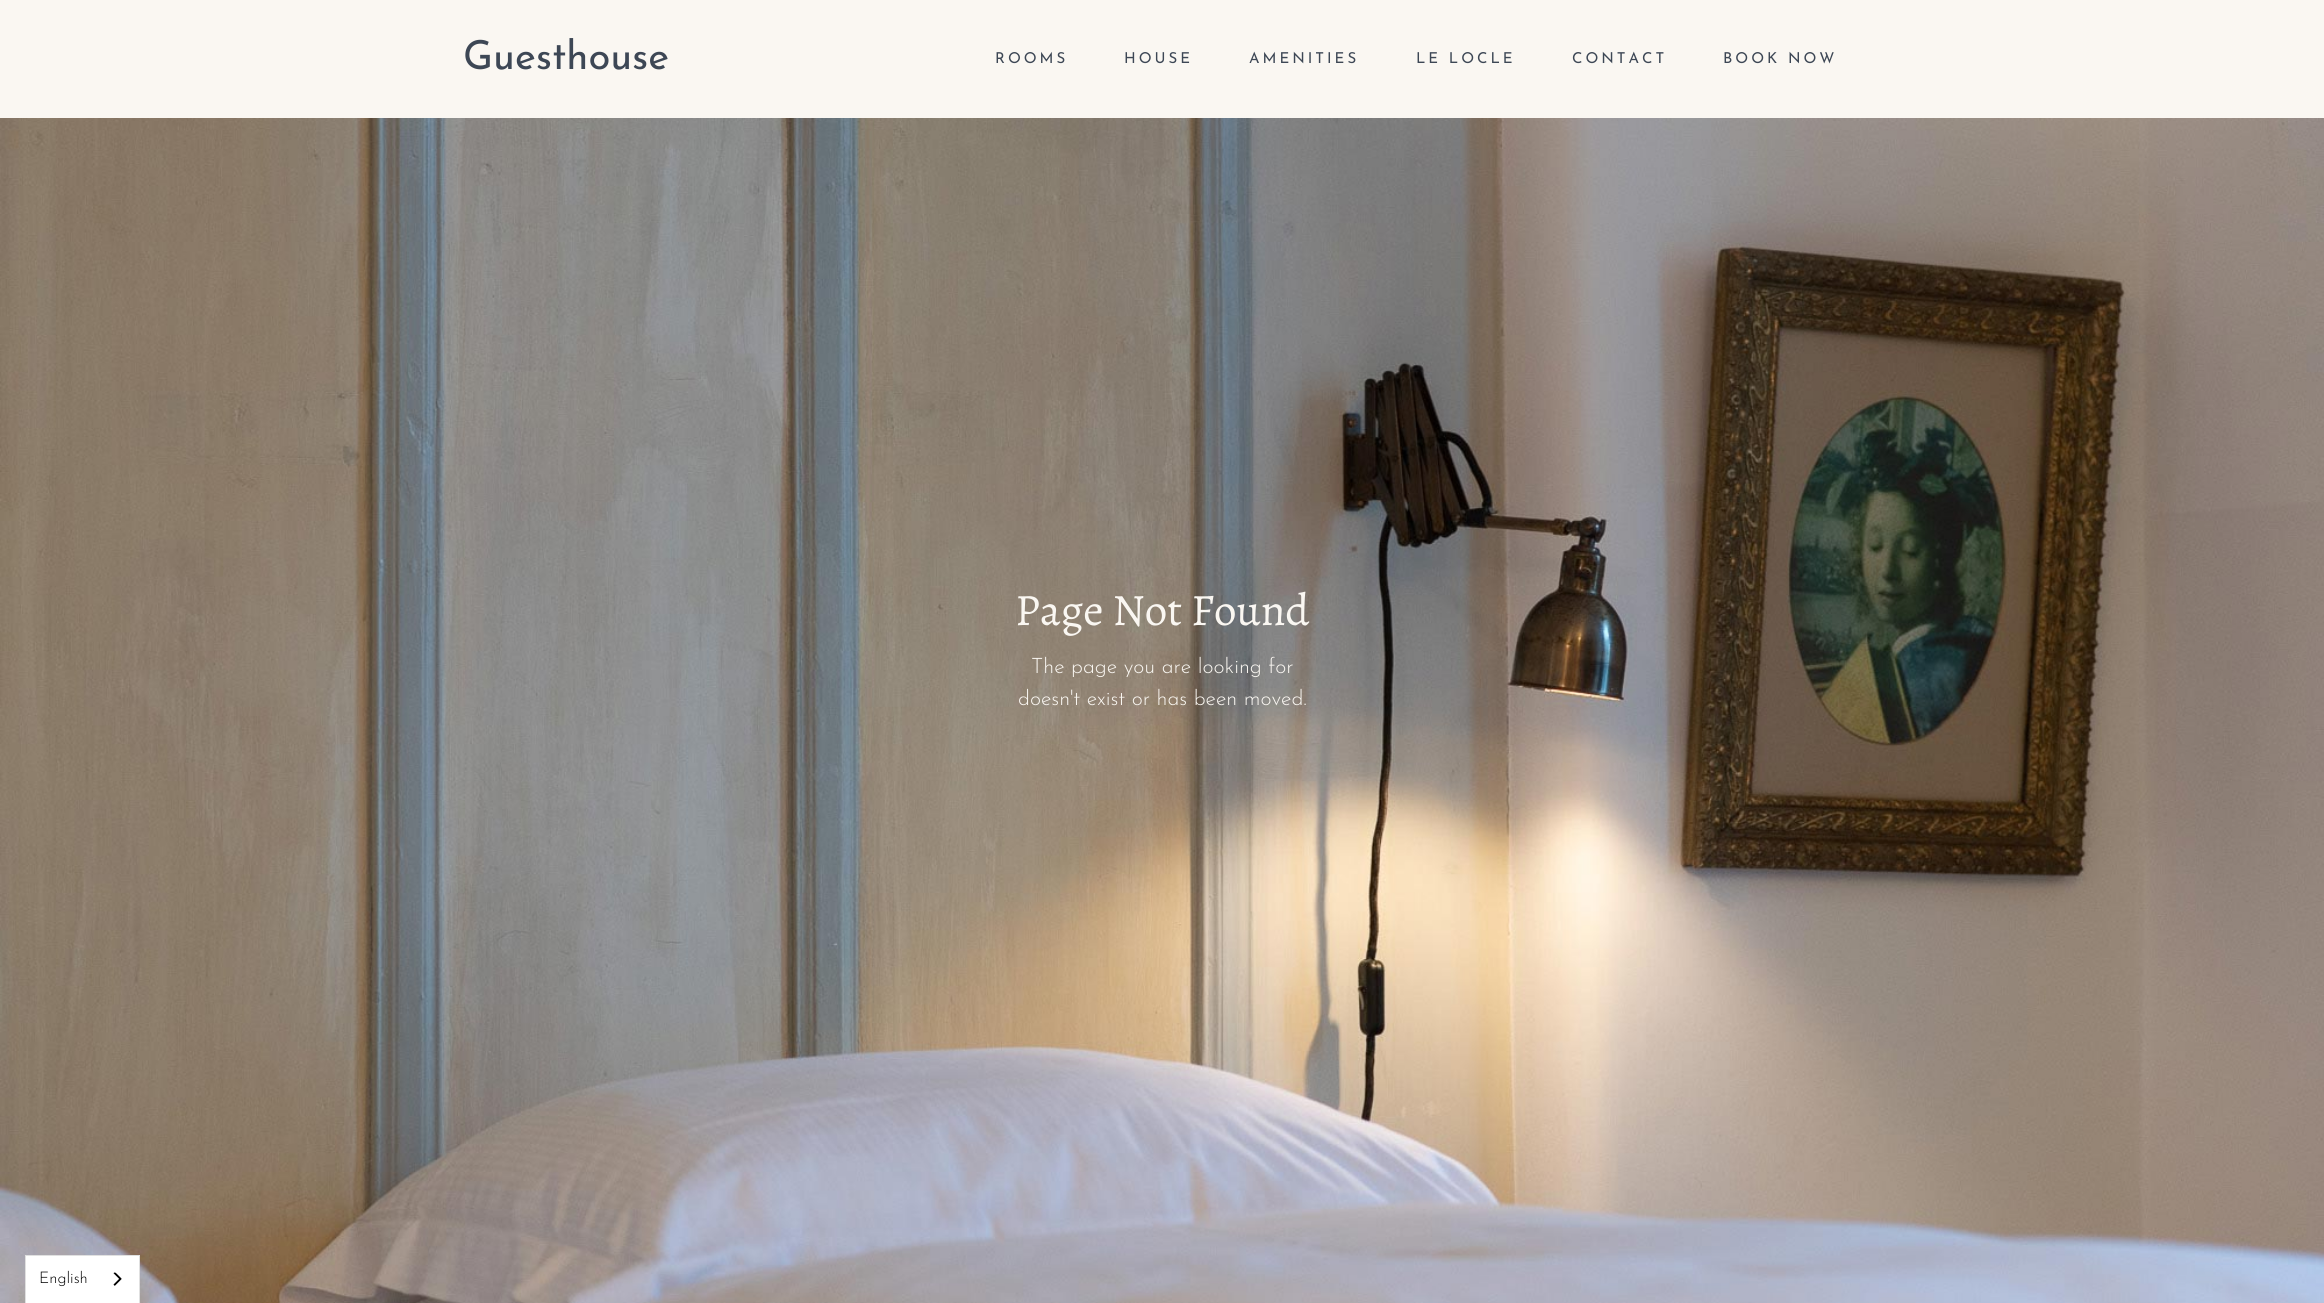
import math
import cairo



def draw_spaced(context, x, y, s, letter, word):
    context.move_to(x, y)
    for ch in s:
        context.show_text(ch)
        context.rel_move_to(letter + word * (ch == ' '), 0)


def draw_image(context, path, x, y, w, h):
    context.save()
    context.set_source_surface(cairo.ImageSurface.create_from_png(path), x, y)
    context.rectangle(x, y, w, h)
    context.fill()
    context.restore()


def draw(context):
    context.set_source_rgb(1, 1, 1)
    context.paint()
    context.set_source_rgb(250 / 255, 247 / 255, 242 / 255)
    context.rectangle(0, 0, 2324, 118)
    context.fill()
    draw_image(context, "images/1.png", 0, 118, 2324, 1185)
    context.set_source_rgb(1, 1, 1)
    context.rectangle(25.5, 1255.5, 114, 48)
    context.fill_preserve()
    context.set_source_rgb(224 / 255, 224 / 255, 224 / 255)
    context.set_line_width(1)
    context.stroke()
    draw_image(context, "images/2.png", 113, 1272, 9, 14)
    context.select_font_face("Josefin Sans")
    context.set_font_size(40)
    context.set_source_rgb(61 / 255, 71 / 255, 85 / 255)
    context.move_to(463, 69)
    context.show_text("Guesthouse")
    context.set_font_size(15)
    draw_spaced(context, 995, 63, "ROOMS", 3, 0)
    draw_spaced(context, 1124, 63, "HOUSE", 3, 0)
    draw_spaced(context, 1249, 63, "AMENITIES", 3, 0)
    draw_spaced(context, 1416, 63, "LE LOCLE", 3, 0)
    draw_spaced(context, 1572, 63, "CONTACT", 3, 0)
    draw_spaced(context, 1723, 63, "BOOK NOW", 3, 0)
    context.select_font_face("Alegreya")
    context.set_font_size(45)
    context.set_source_rgb(250 / 255, 247 / 255, 242 / 255)
    context.move_to(1015, 625)
    context.show_text("Page Not Found")
    context.select_font_face("Josefin Sans Light")
    context.set_font_size(21.25)
    context.move_to(1031, 673)
    context.show_text("The page you are looking for")
    context.move_to(1018, 705)
    context.show_text("doesn't exist or has been moved.")
    context.set_font_size(16)
    context.set_source_rgb(0, 0, 0)
    context.move_to(39, 1283)
    context.show_text("English")


surface = cairo.ImageSurface(cairo.Format.RGB24, 2324, 1303)
context = cairo.Context(surface)
options = cairo.FontOptions()
options.set_hint_metrics(cairo.HintMetrics.OFF)
options.set_hint_style(cairo.HintStyle.NONE)
context.set_font_options(options)
context.set_miter_limit(4)
draw(context)
surface.write_to_png("out.png")
